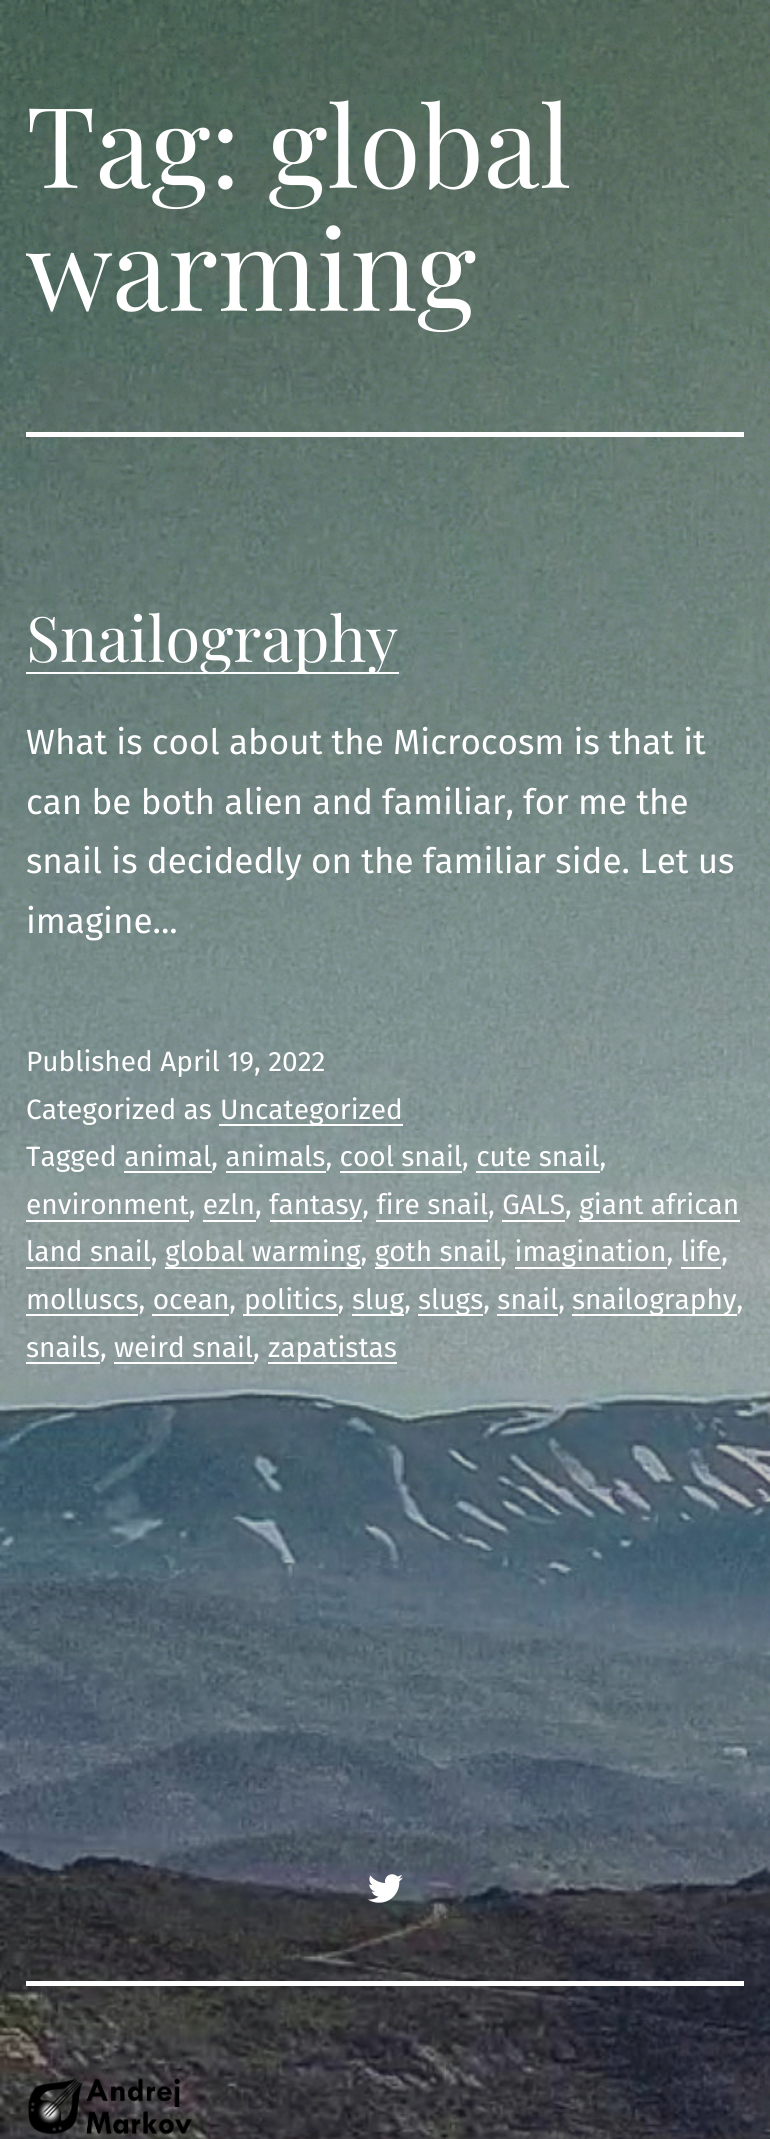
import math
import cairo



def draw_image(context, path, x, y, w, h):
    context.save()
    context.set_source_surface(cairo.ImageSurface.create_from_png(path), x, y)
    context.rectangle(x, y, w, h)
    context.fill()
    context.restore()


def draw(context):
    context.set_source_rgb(1, 1, 1)
    context.paint()
    draw_image(context, "images/1.png", 0, 0, 770, 2139)
    context.set_source_rgb(1, 1, 1)
    context.rectangle(26, 432, 718, 5)
    context.fill()
    context.rectangle(26, 672, 373, 2)
    context.fill()
    context.rectangle(219, 1124, 184, 2)
    context.fill()
    context.rectangle(124, 1171, 88, 2)
    context.fill()
    context.rectangle(226, 1171, 100, 2)
    context.fill()
    context.rectangle(340, 1171, 122, 2)
    context.fill()
    context.rectangle(476, 1171, 124, 2)
    context.fill()
    context.rectangle(26, 1220, 163, 2)
    context.fill()
    context.rectangle(203, 1220, 53, 2)
    context.fill()
    context.rectangle(270, 1220, 92, 2)
    context.fill()
    context.rectangle(376, 1220, 112, 2)
    context.fill()
    context.rectangle(502, 1220, 63, 2)
    context.fill()
    context.rectangle(579, 1220, 161, 2)
    context.fill()
    context.rectangle(26, 1267, 125, 2)
    context.fill()
    context.rectangle(165, 1267, 196, 2)
    context.fill()
    context.rectangle(375, 1267, 126, 2)
    context.fill()
    context.rectangle(515, 1267, 152, 2)
    context.fill()
    context.rectangle(681, 1267, 40, 2)
    context.fill()
    context.rectangle(26, 1314, 112, 2)
    context.fill()
    context.rectangle(243, 1314, 95, 2)
    context.fill()
    context.rectangle(352, 1314, 52, 2)
    context.fill()
    context.rectangle(418, 1314, 65, 2)
    context.fill()
    context.rectangle(572, 1314, 165, 2)
    context.fill()
    context.rectangle(152, 1314, 77, 2)
    context.fill()
    context.rectangle(497, 1314, 61, 2)
    context.fill()
    context.rectangle(26, 1362, 74, 2)
    context.fill()
    context.rectangle(268, 1362, 129, 2)
    context.fill()
    context.rectangle(114, 1362, 140, 2)
    context.fill()
    draw_image(context, "images/2.png", 368, 1874, 35, 29)
    context.rectangle(26, 1981, 718, 5)
    context.fill()
    draw_image(context, "images/3.png", 28, 2078, 164, 57)
    context.select_font_face("Playfair Display")
    context.set_font_size(112)
    context.move_to(26, 188)
    context.show_text("Tag: global")
    context.move_to(26, 311)
    context.show_text("warming")
    context.set_font_size(63)
    context.move_to(26, 662)
    context.show_text("Snailography")
    context.select_font_face("Fira Sans")
    context.set_font_size(35)
    context.move_to(26, 754)
    context.show_text("What is cool about the Microcosm is that it")
    context.move_to(26, 814)
    context.show_text("can be both alien and familiar, for me the")
    context.move_to(26, 873)
    context.show_text("snail is decidedly on the familiar side. Let us")
    context.move_to(26, 933)
    context.show_text("imagine...")
    context.set_font_size(28)
    context.move_to(26, 1071)
    context.show_text("Published April 19, 2022")
    context.move_to(26, 1119)
    context.show_text("Categorized as")
    context.move_to(220, 1119)
    context.show_text("Uncategorized")
    context.move_to(26, 1166)
    context.show_text("Tagged animal, animals, cool snail, cute snail,")
    context.move_to(26, 1214)
    context.show_text("environment, ezln, fantasy, fire snail, GALS, giant african")
    context.move_to(26, 1261)
    context.show_text("land snail, global warming, goth snail, imagination, life,")
    context.move_to(26, 1309)
    context.show_text("molluscs, ocean,")
    context.move_to(244, 1309)
    context.show_text("politics,")
    context.move_to(352, 1309)
    context.show_text("slug,")
    context.move_to(418, 1309)
    context.show_text("slugs, snail,")
    context.move_to(572, 1309)
    context.show_text("snailography,")
    context.move_to(26, 1357)
    context.show_text("snails, weird snail,")
    context.move_to(268, 1357)
    context.show_text("zapatistas")


surface = cairo.ImageSurface(cairo.Format.RGB24, 770, 2139)
context = cairo.Context(surface)
options = cairo.FontOptions()
options.set_hint_metrics(cairo.HintMetrics.OFF)
options.set_hint_style(cairo.HintStyle.NONE)
context.set_font_options(options)
context.set_miter_limit(4)
draw(context)
surface.write_to_png("out.png")
